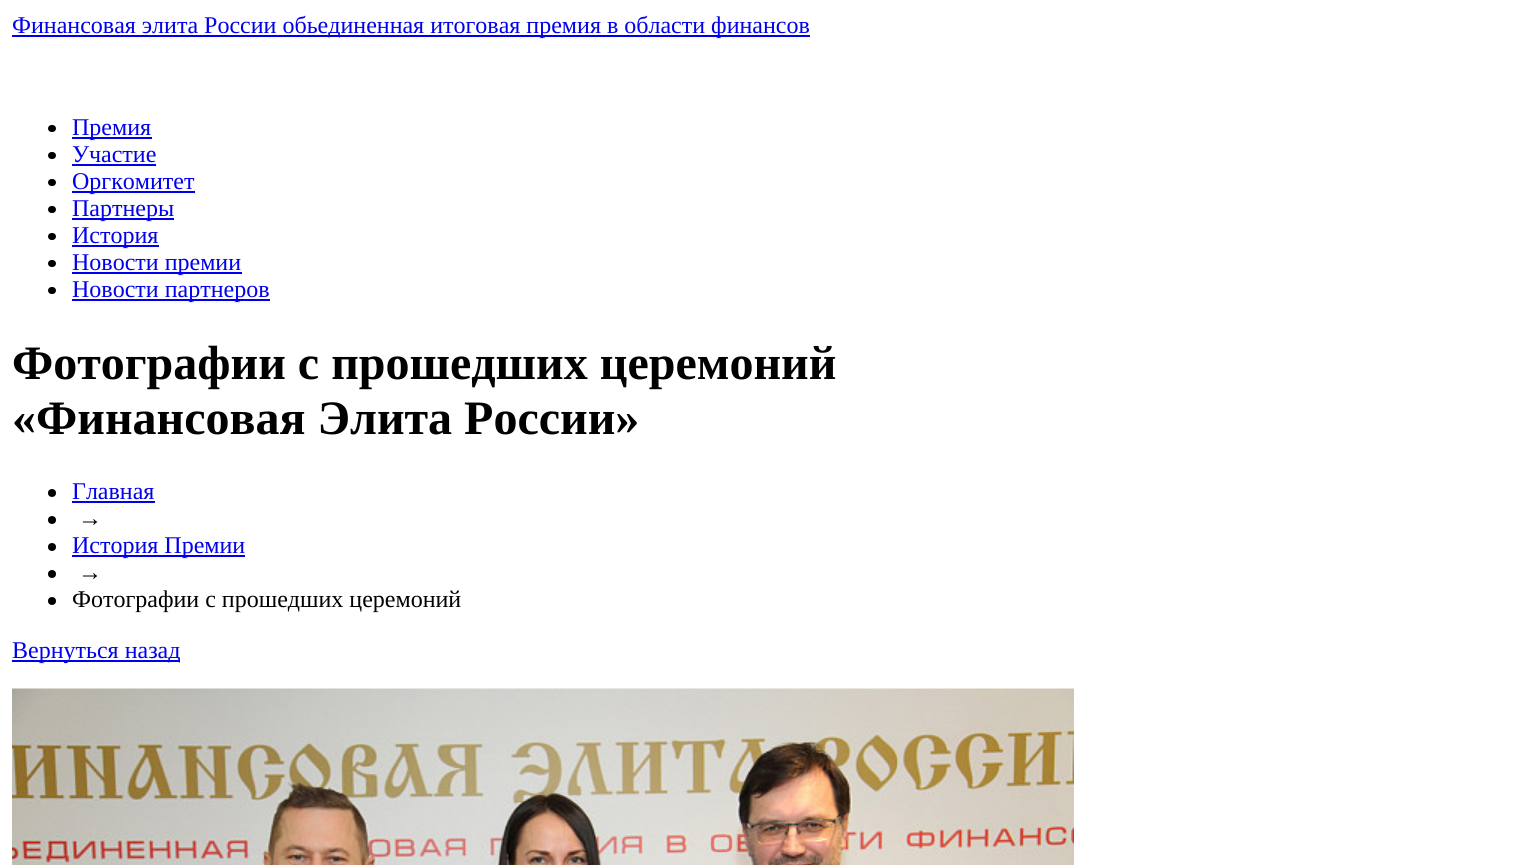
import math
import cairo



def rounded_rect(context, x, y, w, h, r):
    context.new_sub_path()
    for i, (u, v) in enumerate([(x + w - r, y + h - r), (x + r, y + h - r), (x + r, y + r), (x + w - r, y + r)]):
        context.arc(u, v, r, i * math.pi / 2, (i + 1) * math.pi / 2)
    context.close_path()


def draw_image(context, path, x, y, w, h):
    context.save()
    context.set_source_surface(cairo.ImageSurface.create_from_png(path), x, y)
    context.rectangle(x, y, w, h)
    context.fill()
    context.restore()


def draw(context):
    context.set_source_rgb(1, 1, 1)
    context.paint()
    context.set_source_rgb(0, 0, 238 / 255)
    context.rectangle(12, 35, 798, 2)
    context.fill()
    context.set_source_rgb(0, 0, 0)
    rounded_rect(context, 48, 125, 8, 7, 3.5)
    context.fill()
    context.set_source_rgb(0, 0, 238 / 255)
    context.rectangle(72, 137, 80, 2)
    context.fill()
    context.set_source_rgb(0, 0, 0)
    rounded_rect(context, 48, 152, 8, 7, 3.5)
    context.fill()
    context.set_source_rgb(0, 0, 238 / 255)
    context.rectangle(72, 164, 84, 2)
    context.fill()
    context.set_source_rgb(0, 0, 0)
    rounded_rect(context, 48, 179, 8, 7, 3.5)
    context.fill()
    context.set_source_rgb(0, 0, 238 / 255)
    context.rectangle(72, 191, 123, 2)
    context.fill()
    context.set_source_rgb(0, 0, 0)
    rounded_rect(context, 48, 206, 8, 7, 3.5)
    context.fill()
    context.set_source_rgb(0, 0, 238 / 255)
    context.rectangle(72, 218, 102, 2)
    context.fill()
    context.set_source_rgb(0, 0, 0)
    rounded_rect(context, 48, 233, 8, 7, 3.5)
    context.fill()
    context.set_source_rgb(0, 0, 238 / 255)
    context.rectangle(72, 245, 87, 2)
    context.fill()
    context.set_source_rgb(0, 0, 0)
    rounded_rect(context, 48, 260, 8, 7, 3.5)
    context.fill()
    context.set_source_rgb(0, 0, 238 / 255)
    context.rectangle(72, 272, 170, 2)
    context.fill()
    context.set_source_rgb(0, 0, 0)
    rounded_rect(context, 48, 287, 8, 7, 3.5)
    context.fill()
    context.set_source_rgb(0, 0, 238 / 255)
    context.rectangle(72, 299, 198, 2)
    context.fill()
    context.set_source_rgb(0, 0, 0)
    context.arc(52, 493, 4, 0, 2 * math.pi)
    context.fill()
    context.set_source_rgb(0, 0, 238 / 255)
    context.rectangle(72, 501, 83, 2)
    context.fill()
    context.set_source_rgb(0, 0, 0)
    context.arc(52, 520, 4, 0, 2 * math.pi)
    context.fill()
    context.arc(52, 547, 4, 0, 2 * math.pi)
    context.fill()
    context.set_source_rgb(0, 0, 238 / 255)
    context.rectangle(72, 555, 173, 2)
    context.fill()
    context.set_source_rgb(0, 0, 0)
    context.arc(52, 574, 4, 0, 2 * math.pi)
    context.fill()
    context.arc(52, 601, 4, 0, 2 * math.pi)
    context.fill()
    context.set_source_rgb(0, 0, 238 / 255)
    context.rectangle(12, 660, 168, 2)
    context.fill()
    draw_image(context, "images/1.png", 12, 688, 1062, 177)
    context.select_font_face("Liberation Serif")
    context.set_font_size(24)
    context.move_to(12, 33)
    context.show_text("Финансовая элита России обьединенная итоговая премия в области финансов")
    context.move_to(72, 135)
    context.show_text("Премия")
    context.move_to(72, 162)
    context.show_text("Участие")
    context.move_to(72, 189)
    context.show_text("Оргкомитет")
    context.move_to(72, 216)
    context.show_text("Партнеры")
    context.move_to(72, 243)
    context.show_text("История")
    context.move_to(72, 270)
    context.show_text("Новости премии")
    context.move_to(72, 297)
    context.show_text("Новости партнеров")
    context.select_font_face("Liberation Serif", cairo.FontSlant.NORMAL, cairo.FontWeight.BOLD)
    context.set_font_size(48)
    context.set_source_rgb(0, 0, 0)
    context.move_to(12, 379)
    context.show_text("Фотографии с прошедших церемоний")
    context.move_to(12, 434)
    context.show_text("«Финансовая Элита России»")
    context.select_font_face("Liberation Serif")
    context.set_font_size(24)
    context.set_source_rgb(0, 0, 238 / 255)
    context.move_to(72, 499)
    context.show_text("Главная")
    context.set_source_rgb(0, 0, 0)
    context.move_to(78, 526)
    context.show_text("→")
    context.set_source_rgb(0, 0, 238 / 255)
    context.move_to(72, 553)
    context.show_text("История Премии")
    context.set_source_rgb(0, 0, 0)
    context.move_to(78, 580)
    context.show_text("→")
    context.move_to(72, 607)
    context.show_text("Фотографии с прошедших церемоний")
    context.set_source_rgb(0, 0, 238 / 255)
    context.move_to(12, 658)
    context.show_text("Вернуться назад")


surface = cairo.ImageSurface(cairo.Format.RGB24, 1529, 865)
context = cairo.Context(surface)
options = cairo.FontOptions()
options.set_hint_metrics(cairo.HintMetrics.OFF)
options.set_hint_style(cairo.HintStyle.NONE)
context.set_font_options(options)
context.set_miter_limit(4)
draw(context)
surface.write_to_png("out.png")
